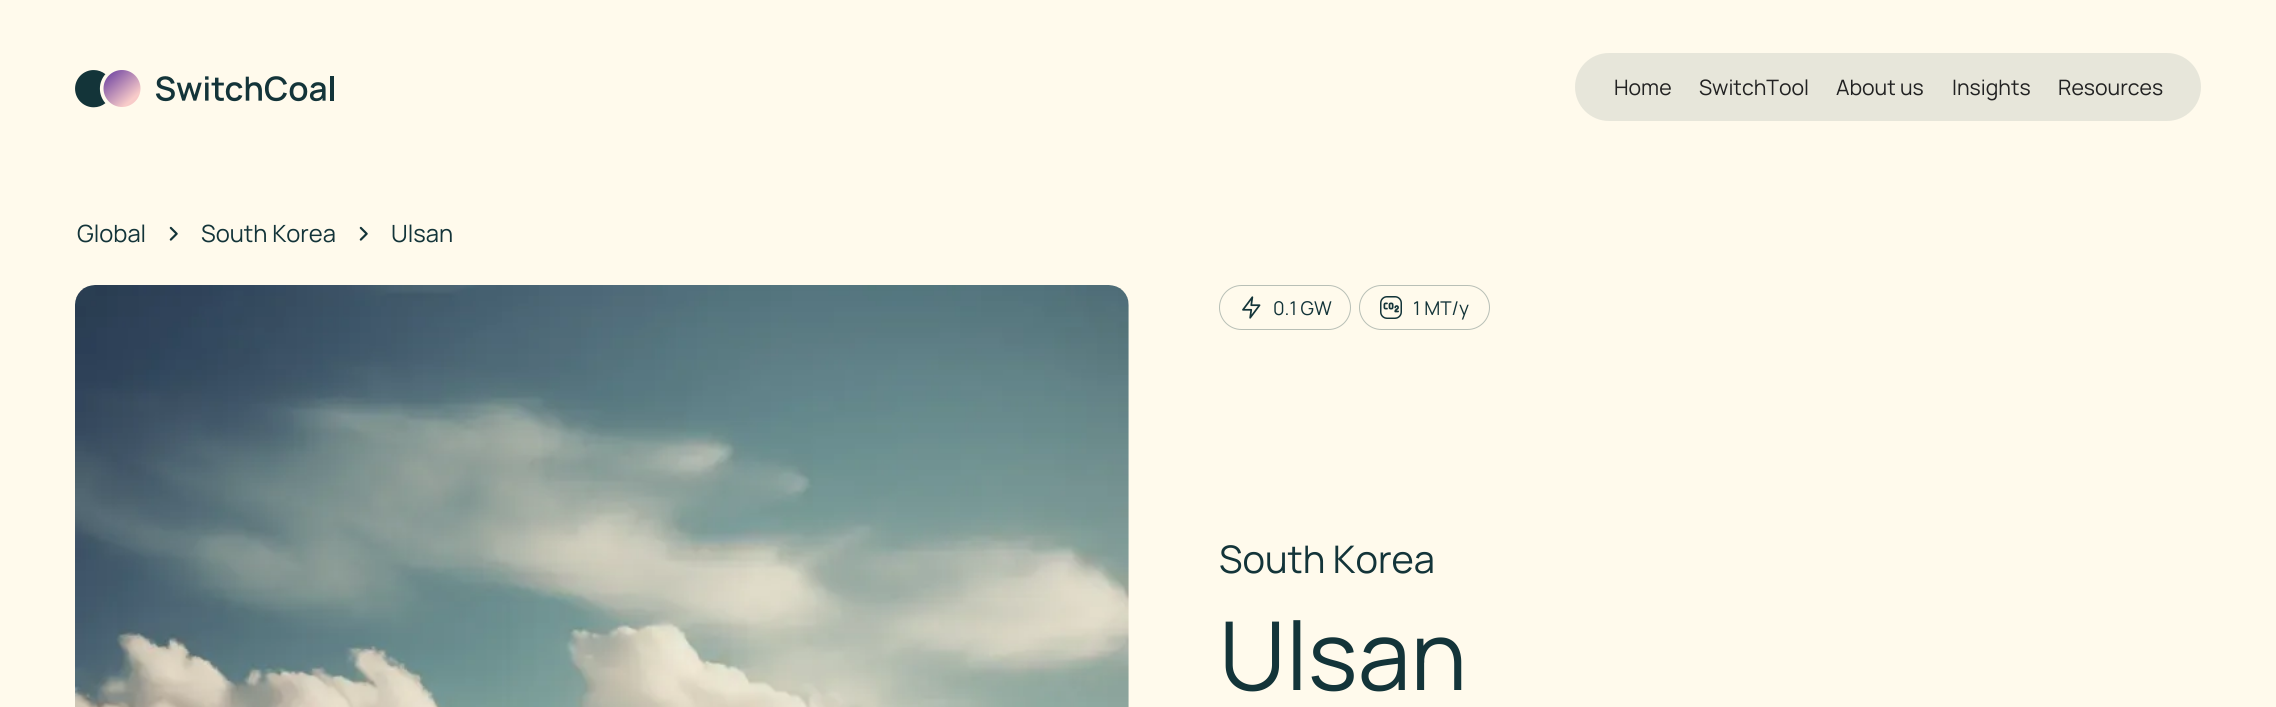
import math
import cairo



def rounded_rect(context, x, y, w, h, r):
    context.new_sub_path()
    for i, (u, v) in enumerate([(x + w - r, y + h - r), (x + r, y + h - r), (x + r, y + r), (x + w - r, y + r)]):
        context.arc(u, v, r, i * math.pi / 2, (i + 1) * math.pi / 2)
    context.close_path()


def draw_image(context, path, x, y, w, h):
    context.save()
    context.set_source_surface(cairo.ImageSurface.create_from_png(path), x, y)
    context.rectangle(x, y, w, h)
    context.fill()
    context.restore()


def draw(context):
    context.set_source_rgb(1, 250 / 255, 236 / 255)
    context.paint()
    draw_image(context, "images/1.png", 75, 70, 259, 38)
    context.set_source_rgb(231 / 255, 230 / 255, 218 / 255)
    rounded_rect(context, 1575, 53, 626, 68, 34)
    context.fill()
    draw_image(context, "images/2.png", 169, 226, 9, 15)
    draw_image(context, "images/2.png", 359, 226, 9, 15)
    draw_image(context, "images/3.png", 75, 285, 1054, 422)
    rounded_rect(context, 1219.5, 285.5, 131, 44, 22)
    context.set_source_rgb(184 / 255, 191 / 255, 182 / 255)
    context.set_line_width(1)
    context.stroke()
    draw_image(context, "images/4.png", 1242, 296, 19, 23)
    rounded_rect(context, 1359.5, 285.5, 130, 44, 22)
    context.stroke()
    draw_image(context, "images/5.png", 1380, 296, 22, 23)
    context.select_font_face("Manrope")
    context.set_font_size(21.25)
    context.set_source_rgb(34 / 255, 34 / 255, 34 / 255)
    context.move_to(1614, 95)
    context.show_text("Home")
    context.move_to(1699, 95)
    context.show_text("SwitchTool")
    context.move_to(1836, 95)
    context.show_text("About us")
    context.move_to(1952, 95)
    context.show_text("Insights")
    context.move_to(2058, 95)
    context.show_text("Resources")
    context.set_font_size(23.75)
    context.set_source_rgb(19 / 255, 52 / 255, 57 / 255)
    context.move_to(77, 242)
    context.show_text("Global")
    context.move_to(201, 242)
    context.show_text("South Korea")
    context.move_to(391, 242)
    context.show_text("Ulsan")
    context.set_font_size(19)
    context.move_to(1273, 315)
    context.show_text("0.1 GW")
    context.move_to(1413, 315)
    context.show_text("1 MT/y")
    context.set_font_size(38)
    context.move_to(1219, 573)
    context.show_text("South Korea")
    context.set_font_size(95)
    context.move_to(1219, 690)
    context.show_text("Ulsan")


surface = cairo.ImageSurface(cairo.Format.RGB24, 2276, 707)
context = cairo.Context(surface)
options = cairo.FontOptions()
options.set_hint_metrics(cairo.HintMetrics.OFF)
options.set_hint_style(cairo.HintStyle.NONE)
context.set_font_options(options)
context.set_miter_limit(4)
draw(context)
surface.write_to_png("out.png")
